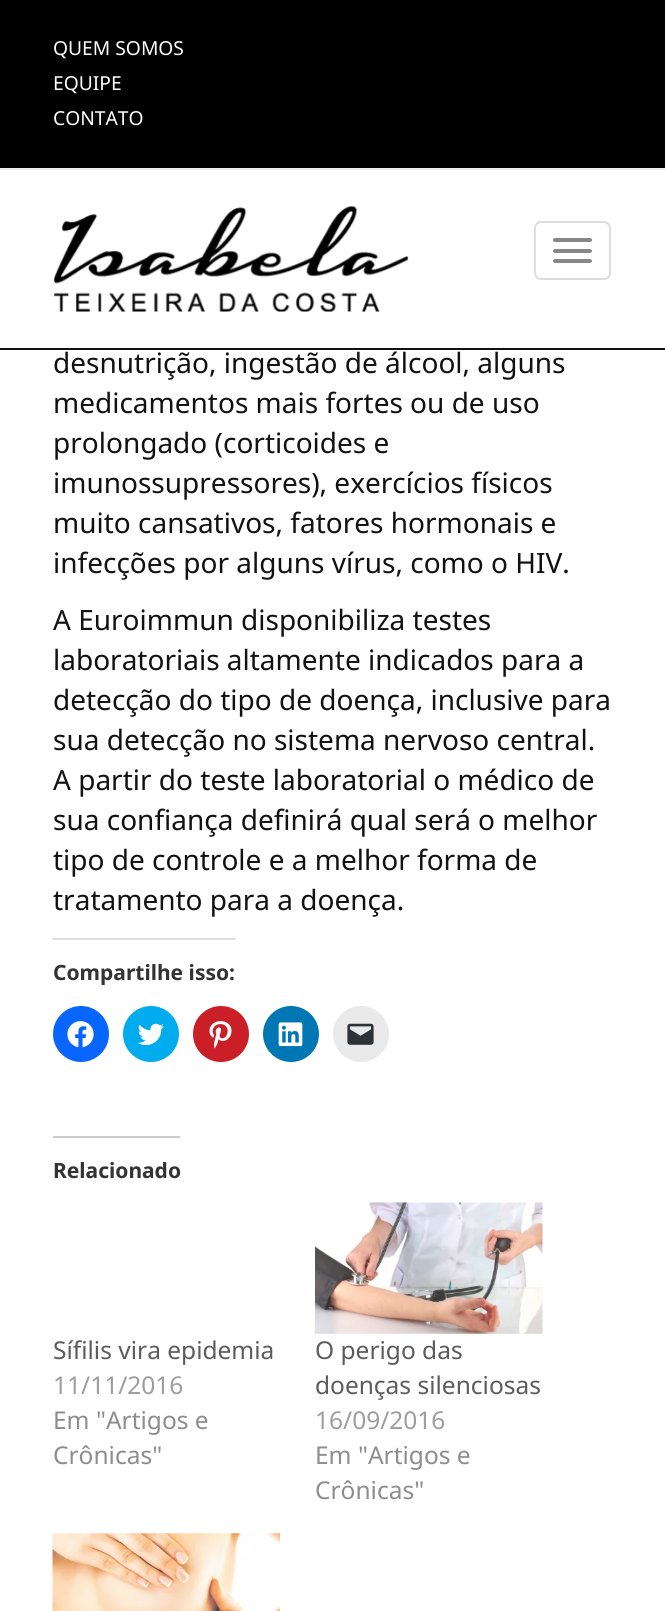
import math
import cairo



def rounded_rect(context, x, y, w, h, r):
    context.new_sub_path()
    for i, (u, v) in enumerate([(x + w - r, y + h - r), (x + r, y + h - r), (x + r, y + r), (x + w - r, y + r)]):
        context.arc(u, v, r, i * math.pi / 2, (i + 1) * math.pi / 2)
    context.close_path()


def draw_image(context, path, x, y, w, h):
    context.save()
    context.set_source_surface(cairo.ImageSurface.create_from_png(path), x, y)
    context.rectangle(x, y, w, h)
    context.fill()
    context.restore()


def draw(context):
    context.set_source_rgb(1, 1, 1)
    context.paint()
    context.set_source_rgb(17 / 255, 17 / 255, 17 / 255)
    context.rectangle(0, 348, 665, 2)
    context.fill()
    context.set_source_rgb(0, 0, 0)
    context.rectangle(0, 0, 665, 168)
    context.fill()
    context.set_source_rgb(238 / 255, 238 / 255, 238 / 255)
    context.rectangle(0, 168, 665, 2)
    context.fill()
    draw_image(context, "images/1.png", 54, 206, 355, 106)
    rounded_rect(context, 535, 222, 75, 57, 6)
    context.set_source_rgb(221 / 255, 221 / 255, 221 / 255)
    context.stroke()
    context.set_source_rgb(136 / 255, 136 / 255, 136 / 255)
    rounded_rect(context, 553, 238, 39, 4, 2)
    context.fill()
    rounded_rect(context, 553, 249, 39, 4, 2)
    context.fill()
    rounded_rect(context, 553, 259, 39, 4, 2)
    context.fill()
    context.set_source_rgb(220 / 255, 220 / 255, 222 / 255)
    context.rectangle(53, 938, 182, 2)
    context.fill()
    context.set_source_rgb(8 / 255, 102 / 255, 1)
    context.arc(81, 1034, 28, 0, 2 * math.pi)
    context.fill()
    draw_image(context, "images/2.png", 67, 1021, 27, 27)
    context.set_source_rgb(0, 172 / 255, 238 / 255)
    context.arc(151, 1034, 28, 0, 2 * math.pi)
    context.fill()
    draw_image(context, "images/3.png", 137, 1023, 27, 23)
    context.set_source_rgb(202 / 255, 31 / 255, 39 / 255)
    context.arc(221, 1034, 28, 0, 2 * math.pi)
    context.fill()
    draw_image(context, "images/4.png", 209, 1021, 23, 28)
    context.set_source_rgb(0, 119 / 255, 181 / 255)
    context.arc(291, 1034, 28, 0, 2 * math.pi)
    context.fill()
    draw_image(context, "images/5.png", 278, 1022, 25, 25)
    context.set_source_rgb(233 / 255, 233 / 255, 233 / 255)
    context.arc(361, 1034, 28, 0, 2 * math.pi)
    context.fill()
    draw_image(context, "images/6.png", 347, 1023, 27, 22)
    context.set_source_rgb(204 / 255, 204 / 255, 204 / 255)
    context.rectangle(53, 1136, 127, 2)
    context.fill()
    draw_image(context, "images/7.png", 315, 1202, 228, 132)
    draw_image(context, "images/8.png", 52, 1533, 228, 78)
    context.select_font_face("Noto Sans")
    context.set_font_size(19.25)
    context.set_source_rgb(1, 1, 1)
    context.move_to(53, 55)
    context.show_text("QUEM SOMOS")
    context.move_to(53, 90)
    context.show_text("EQUIPE")
    context.move_to(53, 125)
    context.show_text("CONTATO")
    context.set_font_size(28)
    context.set_source_rgb(17 / 255, 17 / 255, 17 / 255)
    context.move_to(53, 373)
    context.show_text("desnutrição, ingestão de álcool, alguns")
    context.move_to(53, 413)
    context.show_text("medicamentos mais fortes ou de uso")
    context.move_to(53, 453)
    context.show_text("prolongado (corticoides e")
    context.move_to(53, 493)
    context.show_text("imunossupressores), exercícios físicos")
    context.move_to(53, 533)
    context.show_text("muito cansativos, fatores hormonais e")
    context.move_to(53, 573)
    context.show_text("infecções por alguns vírus, como o HIV.")
    context.move_to(53, 630)
    context.show_text("A Euroimmun disponibiliza testes")
    context.move_to(53, 670)
    context.show_text("laboratoriais altamente indicados para a")
    context.move_to(53, 710)
    context.show_text("detecção do tipo de doença, inclusive para")
    context.move_to(53, 750)
    context.show_text("sua detecção no sistema nervoso central.")
    context.move_to(53, 790)
    context.show_text("A partir do teste laboratorial o médico de")
    context.move_to(53, 830)
    context.show_text("sua confiança definirá qual será o melhor")
    context.move_to(53, 870)
    context.show_text("tipo de controle e a melhor forma de")
    context.move_to(53, 910)
    context.show_text("tratamento para a doença.")
    context.select_font_face("Noto Sans", cairo.FontSlant.NORMAL, cairo.FontWeight.BOLD)
    context.set_font_size(21)
    context.set_source_rgb(51 / 255, 51 / 255, 51 / 255)
    context.move_to(53, 980)
    context.show_text("Compartilhe isso:")
    context.move_to(53, 1178)
    context.show_text("Relacionado")
    context.select_font_face("Noto Sans")
    context.set_font_size(24.5)
    context.set_source_rgb(92 / 255, 92 / 255, 92 / 255)
    context.move_to(53, 1359)
    context.show_text("Sífilis vira epidemia")
    context.set_source_rgb(157 / 255, 157 / 255, 157 / 255)
    context.move_to(53, 1394)
    context.show_text("11/11/2016")
    context.set_source_rgb(141 / 255, 141 / 255, 141 / 255)
    context.move_to(53, 1429)
    context.show_text("Em \"Artigos e")
    context.move_to(53, 1464)
    context.show_text("Crônicas\"")
    context.set_source_rgb(92 / 255, 92 / 255, 92 / 255)
    context.move_to(315, 1359)
    context.show_text("O perigo das")
    context.move_to(315, 1394)
    context.show_text("doenças silenciosas")
    context.set_source_rgb(157 / 255, 157 / 255, 157 / 255)
    context.move_to(315, 1429)
    context.show_text("16/09/2016")
    context.set_source_rgb(141 / 255, 141 / 255, 141 / 255)
    context.move_to(315, 1464)
    context.show_text("Em \"Artigos e")
    context.move_to(315, 1499)
    context.show_text("Crônicas\"")


surface = cairo.ImageSurface(cairo.Format.RGB24, 665, 1611)
context = cairo.Context(surface)
options = cairo.FontOptions()
options.set_hint_metrics(cairo.HintMetrics.OFF)
options.set_hint_style(cairo.HintStyle.NONE)
context.set_font_options(options)
context.set_miter_limit(4)
draw(context)
surface.write_to_png("out.png")
